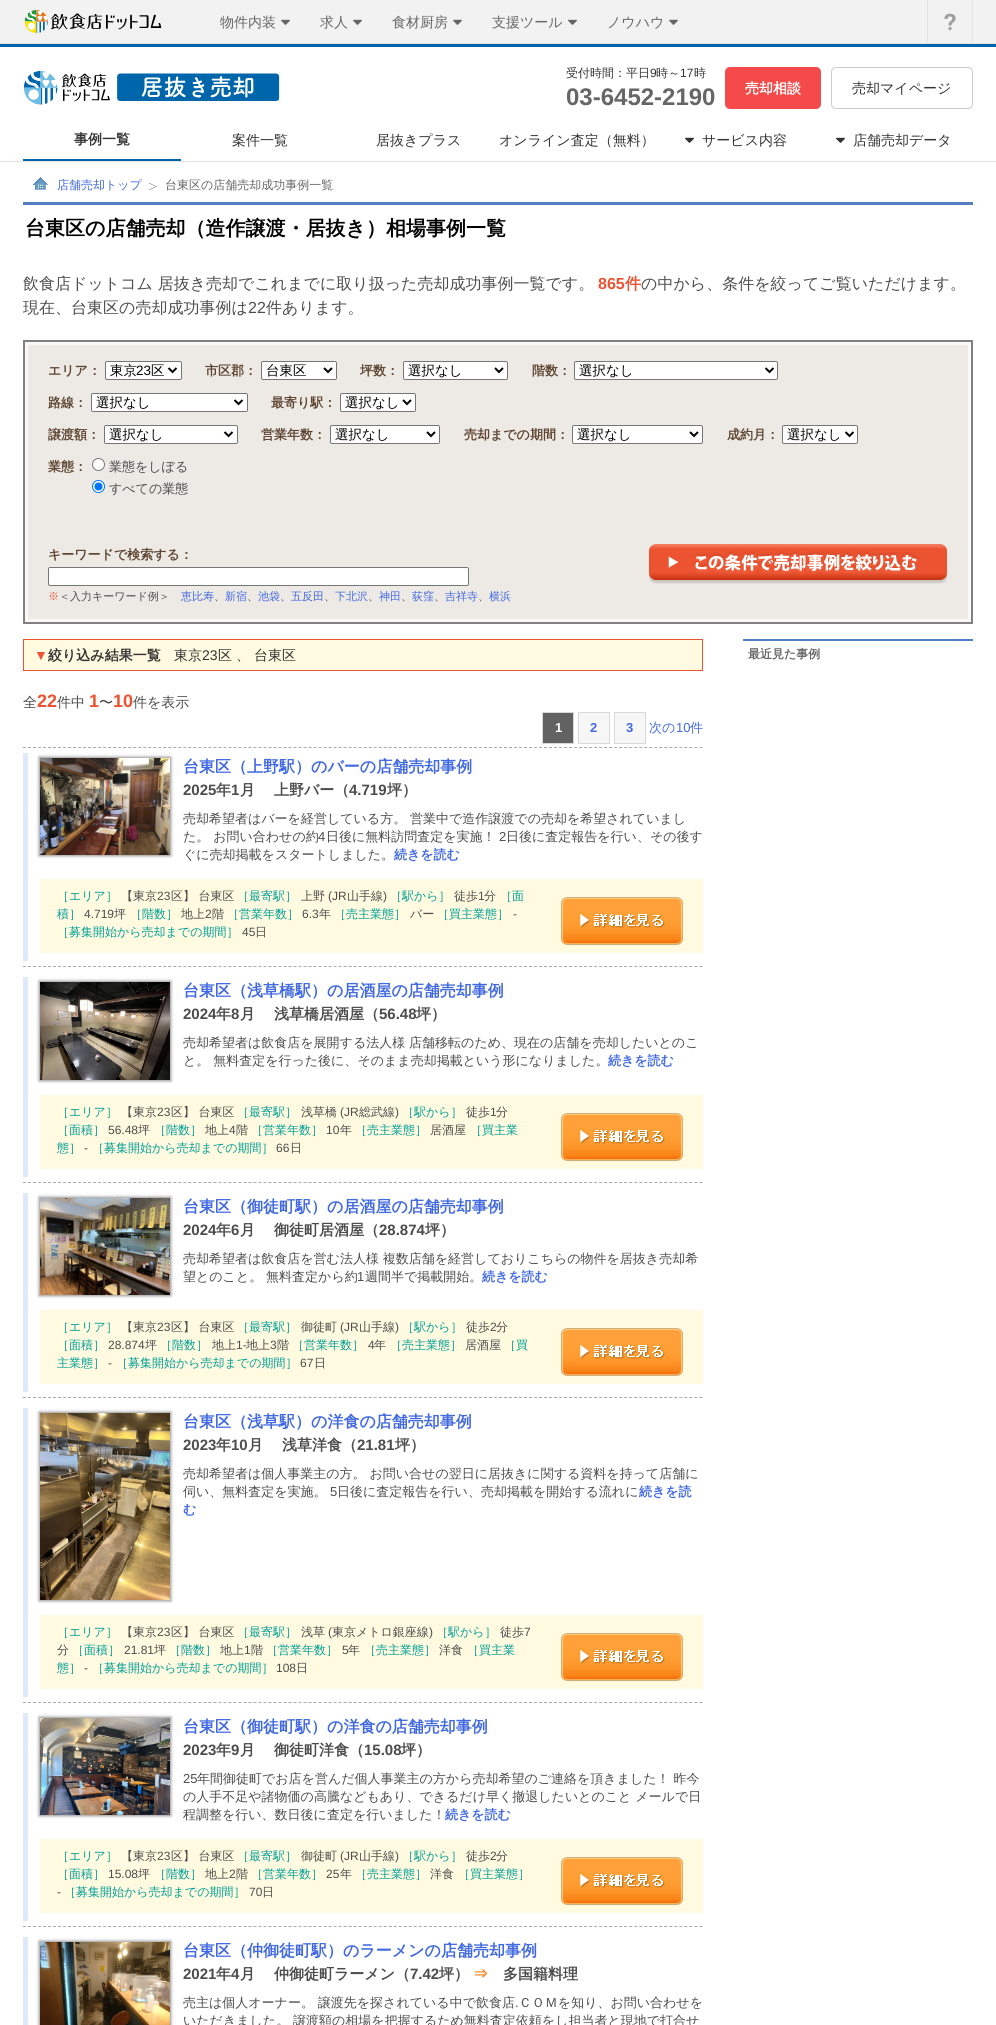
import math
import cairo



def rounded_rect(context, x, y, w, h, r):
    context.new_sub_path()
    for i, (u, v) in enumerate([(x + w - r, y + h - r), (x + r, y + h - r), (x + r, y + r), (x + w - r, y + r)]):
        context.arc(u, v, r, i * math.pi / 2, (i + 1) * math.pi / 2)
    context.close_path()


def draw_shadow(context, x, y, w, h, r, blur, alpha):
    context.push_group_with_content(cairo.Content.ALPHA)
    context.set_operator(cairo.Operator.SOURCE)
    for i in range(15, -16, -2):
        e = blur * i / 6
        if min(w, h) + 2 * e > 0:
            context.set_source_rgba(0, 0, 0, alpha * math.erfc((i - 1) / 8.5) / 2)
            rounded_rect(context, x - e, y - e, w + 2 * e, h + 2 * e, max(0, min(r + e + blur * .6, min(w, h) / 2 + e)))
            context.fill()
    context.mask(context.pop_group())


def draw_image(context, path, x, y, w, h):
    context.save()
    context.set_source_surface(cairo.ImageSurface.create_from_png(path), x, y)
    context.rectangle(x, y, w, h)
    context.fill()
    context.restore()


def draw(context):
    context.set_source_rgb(1, 1, 1)
    context.paint()
    context.set_source_rgb(242 / 255, 242 / 255, 242 / 255)
    context.rectangle(0, 0, 996, 43)
    context.fill()
    context.set_source_rgb(228 / 255, 228 / 255, 228 / 255)
    context.rectangle(0, 43, 996, 1)
    context.fill()
    draw_image(context, "images/1.png", 24, 10, 138, 23)
    draw_image(context, "images/2.png", 281, 19, 9, 6)
    draw_image(context, "images/2.png", 353, 19, 9, 6)
    draw_image(context, "images/2.png", 453, 19, 9, 6)
    draw_image(context, "images/2.png", 568, 19, 9, 6)
    draw_image(context, "images/2.png", 669, 19, 9, 6)
    context.rectangle(972, 0, 1, 44)
    context.fill()
    context.rectangle(927, 0, 1, 44)
    context.fill()
    draw_image(context, "images/3.png", 944, 13, 12, 18)
    context.set_source_rgb(0, 102 / 255, 171 / 255)
    context.rectangle(0, 44, 996, 3)
    context.fill()
    context.set_source_rgb(228 / 255, 228 / 255, 228 / 255)
    context.rectangle(0, 161, 996, 1)
    context.fill()
    draw_image(context, "images/4.png", 23, 71, 257, 34)
    context.set_source_rgb(244 / 255, 74 / 255, 74 / 255)
    rounded_rect(context, 725, 67, 96, 42, 5)
    context.fill()
    rounded_rect(context, 831.5, 67.5, 141, 41, 4.5)
    context.set_source_rgb(204 / 255, 204 / 255, 204 / 255)
    context.set_line_width(1)
    context.stroke()
    context.set_source_rgb(0, 102 / 255, 171 / 255)
    context.rectangle(23, 159, 158, 2)
    context.fill()
    draw_image(context, "images/5.png", 685, 137, 9, 6)
    draw_image(context, "images/5.png", 836, 137, 9, 6)
    draw_image(context, "images/6.png", 33, 177, 15, 13)
    draw_image(context, "images/7.png", 149, 183, 8, 7)
    context.set_source_rgb(82 / 255, 127 / 255, 195 / 255)
    context.rectangle(23, 202, 950, 3)
    context.fill()
    context.set_source_rgb(250 / 255, 249 / 255, 248 / 255)
    context.rectangle(24, 341, 948, 282)
    context.fill_preserve()
    context.set_source_rgb(128 / 255, 128 / 255, 128 / 255)
    context.set_line_width(2)
    context.stroke()
    context.set_source_rgb(237 / 255, 233 / 255, 229 / 255)
    context.rectangle(28, 345, 940, 274)
    context.fill()
    context.set_source_rgb(1, 1, 1)
    rounded_rect(context, 105.5, 361.5, 76, 18, 1.5)
    context.fill_preserve()
    context.set_source_rgb(118 / 255, 118 / 255, 118 / 255)
    context.set_line_width(1)
    context.stroke()
    context.new_path()
    context.move_to(168.5, 368)
    context.line_to(172.5, 372)
    context.line_to(176.5, 368)
    context.set_source_rgb(0, 0, 0)
    context.set_line_width(2)
    context.stroke()
    context.set_source_rgb(1, 1, 1)
    rounded_rect(context, 261.5, 361.5, 75, 18, 1.5)
    context.fill_preserve()
    context.set_source_rgb(118 / 255, 118 / 255, 118 / 255)
    context.set_line_width(1)
    context.stroke()
    context.new_path()
    context.move_to(324, 368)
    context.line_to(328, 372)
    context.line_to(332, 368)
    context.set_source_rgb(0, 0, 0)
    context.set_line_width(2)
    context.stroke()
    context.set_source_rgb(1, 1, 1)
    rounded_rect(context, 403.5, 361.5, 104, 18, 1.5)
    context.fill_preserve()
    context.set_source_rgb(118 / 255, 118 / 255, 118 / 255)
    context.set_line_width(1)
    context.stroke()
    context.new_path()
    context.move_to(495, 368)
    context.line_to(499, 372)
    context.line_to(503, 368)
    context.set_source_rgb(0, 0, 0)
    context.set_line_width(2)
    context.stroke()
    context.set_source_rgb(1, 1, 1)
    rounded_rect(context, 574.5, 361.5, 203, 18, 1.5)
    context.fill_preserve()
    context.set_source_rgb(118 / 255, 118 / 255, 118 / 255)
    context.set_line_width(1)
    context.stroke()
    context.new_path()
    context.move_to(765.5, 368)
    context.line_to(769.5, 372)
    context.line_to(773.5, 368)
    context.set_source_rgb(0, 0, 0)
    context.set_line_width(2)
    context.stroke()
    context.set_source_rgb(1, 1, 1)
    rounded_rect(context, 91.5, 393.5, 156, 18, 1.5)
    context.fill_preserve()
    context.set_source_rgb(118 / 255, 118 / 255, 118 / 255)
    context.set_line_width(1)
    context.stroke()
    context.new_path()
    context.move_to(234.5, 400)
    context.line_to(238.5, 404)
    context.line_to(242.5, 400)
    context.set_source_rgb(0, 0, 0)
    context.set_line_width(2)
    context.stroke()
    context.set_source_rgb(1, 1, 1)
    rounded_rect(context, 340.5, 393.5, 75, 18, 1.5)
    context.fill_preserve()
    context.set_source_rgb(118 / 255, 118 / 255, 118 / 255)
    context.set_line_width(1)
    context.stroke()
    context.new_path()
    context.move_to(403, 400)
    context.line_to(407, 404)
    context.line_to(411, 400)
    context.set_source_rgb(0, 0, 0)
    context.set_line_width(2)
    context.stroke()
    context.set_source_rgb(1, 1, 1)
    rounded_rect(context, 104.5, 425.5, 133, 18, 1.5)
    context.fill_preserve()
    context.set_source_rgb(118 / 255, 118 / 255, 118 / 255)
    context.set_line_width(1)
    context.stroke()
    context.new_path()
    context.move_to(224.5, 432)
    context.line_to(228.5, 436)
    context.line_to(232.5, 432)
    context.set_source_rgb(0, 0, 0)
    context.set_line_width(2)
    context.stroke()
    context.set_source_rgb(1, 1, 1)
    rounded_rect(context, 330.5, 425.5, 109, 18, 1.5)
    context.fill_preserve()
    context.set_source_rgb(118 / 255, 118 / 255, 118 / 255)
    context.set_line_width(1)
    context.stroke()
    context.new_path()
    context.move_to(427, 432)
    context.line_to(431, 436)
    context.line_to(435, 432)
    context.set_source_rgb(0, 0, 0)
    context.set_line_width(2)
    context.stroke()
    context.set_source_rgb(1, 1, 1)
    rounded_rect(context, 572.5, 425.5, 130, 18, 1.5)
    context.fill_preserve()
    context.set_source_rgb(118 / 255, 118 / 255, 118 / 255)
    context.set_line_width(1)
    context.stroke()
    context.new_path()
    context.move_to(690, 432)
    context.line_to(694, 436)
    context.line_to(698, 432)
    context.set_source_rgb(0, 0, 0)
    context.set_line_width(2)
    context.stroke()
    context.set_source_rgb(1, 1, 1)
    rounded_rect(context, 782.5, 425.5, 75, 18, 1.5)
    context.fill_preserve()
    context.set_source_rgb(118 / 255, 118 / 255, 118 / 255)
    context.set_line_width(1)
    context.stroke()
    context.new_path()
    context.move_to(845.5, 432)
    context.line_to(849.5, 436)
    context.line_to(853.5, 432)
    context.set_source_rgb(0, 0, 0)
    context.set_line_width(2)
    context.stroke()
    context.set_source_rgb(1, 1, 1)
    context.arc(98.5, 464.5, 6, 0, 2 * math.pi)
    context.fill_preserve()
    context.set_source_rgb(118 / 255, 118 / 255, 118 / 255)
    context.set_line_width(1)
    context.stroke()
    context.set_source_rgb(1, 1, 1)
    context.arc(98.5, 486.5, 6, 0, 2 * math.pi)
    context.fill_preserve()
    context.set_source_rgb(0, 117 / 255, 1)
    context.stroke()
    context.arc(98.5, 486.5, 4, 0, 2 * math.pi)
    context.fill()
    context.set_source_rgb(1, 1, 1)
    rounded_rect(context, 48.5, 567.5, 420, 18, 1.5)
    context.fill_preserve()
    context.set_source_rgb(118 / 255, 118 / 255, 118 / 255)
    context.stroke()
    draw_image(context, "images/8.png", 649, 544, 299, 40)
    context.set_source_rgb(1, 250 / 255, 224 / 255)
    context.rectangle(23.5, 639.5, 679, 31)
    context.fill_preserve()
    context.set_source_rgb(236 / 255, 83 / 255, 48 / 255)
    context.stroke()
    context.set_source_rgb(98 / 255, 98 / 255, 98 / 255)
    context.rectangle(542.5, 712.5, 31, 31)
    context.fill_preserve()
    context.set_source_rgb(217 / 255, 217 / 255, 217 / 255)
    context.stroke()
    context.set_source_rgb(247 / 255, 247 / 255, 247 / 255)
    context.rectangle(578.5, 712.5, 31, 31)
    context.fill_preserve()
    context.set_source_rgb(217 / 255, 217 / 255, 217 / 255)
    context.stroke()
    context.set_source_rgb(247 / 255, 247 / 255, 247 / 255)
    context.rectangle(614.5, 712.5, 31, 31)
    context.fill_preserve()
    context.set_source_rgb(217 / 255, 217 / 255, 217 / 255)
    context.stroke()
    context.new_path()
    context.move_to(23, 747.5)
    context.line_to(703, 747.5)
    context.set_source_rgb(170 / 255, 170 / 255, 170 / 255)
    context.set_dash([3, 2.01])
    context.stroke()
    context.new_path()
    context.move_to(23, 966.5)
    context.line_to(703, 966.5)
    context.stroke()
    context.set_source_rgb(223 / 255, 233 / 255, 252 / 255)
    context.rectangle(23, 753, 5, 208)
    context.fill()
    context.set_source_rgb(4 / 255, 0, 0)
    draw_shadow(context, 39, 757, 132, 99, 0, 1.5, 0.44)
    draw_image(context, "images/9.png", 40, 758, 130, 97)
    context.set_source_rgb(1, 250 / 255, 224 / 255)
    context.rectangle(40, 879, 663, 74)
    context.fill()
    draw_image(context, "images/10.png", 561, 897, 122, 48)
    context.new_path()
    context.move_to(23, 1182.5)
    context.line_to(703, 1182.5)
    context.set_source_rgb(170 / 255, 170 / 255, 170 / 255)
    context.stroke()
    context.set_source_rgb(223 / 255, 233 / 255, 252 / 255)
    context.rectangle(23, 977, 5, 200)
    context.fill()
    context.set_source_rgb(4 / 255, 0, 0)
    draw_shadow(context, 39, 981, 132, 100, 0, 1.5, 0.44)
    draw_image(context, "images/11.png", 40, 982, 130, 98)
    context.set_source_rgb(1, 250 / 255, 224 / 255)
    context.rectangle(40, 1095, 663, 74)
    context.fill()
    draw_image(context, "images/10.png", 561, 1113, 122, 48)
    context.new_path()
    context.move_to(23, 1397.5)
    context.line_to(703, 1397.5)
    context.set_source_rgb(170 / 255, 170 / 255, 170 / 255)
    context.stroke()
    context.set_source_rgb(223 / 255, 233 / 255, 252 / 255)
    context.rectangle(23, 1193, 5, 199)
    context.fill()
    context.set_source_rgb(4 / 255, 0, 0)
    draw_shadow(context, 39, 1197, 132, 99, 0, 1.5, 0.44)
    draw_image(context, "images/12.png", 40, 1198, 130, 97)
    context.set_source_rgb(1, 250 / 255, 224 / 255)
    context.rectangle(40, 1310, 663, 74)
    context.fill()
    draw_image(context, "images/10.png", 561, 1328, 122, 48)
    context.new_path()
    context.move_to(23, 1702.5)
    context.line_to(703, 1702.5)
    context.set_source_rgb(170 / 255, 170 / 255, 170 / 255)
    context.stroke()
    context.set_source_rgb(223 / 255, 233 / 255, 252 / 255)
    context.rectangle(23, 1408, 5, 289)
    context.fill()
    context.set_source_rgb(4 / 255, 0, 0)
    draw_shadow(context, 39, 1412, 132, 189, 0, 1.5, 0.44)
    draw_image(context, "images/13.png", 40, 1413, 130, 187)
    context.set_source_rgb(1, 250 / 255, 224 / 255)
    context.rectangle(40, 1615, 663, 74)
    context.fill()
    draw_image(context, "images/10.png", 561, 1633, 122, 48)
    context.new_path()
    context.move_to(23, 1926.5)
    context.line_to(703, 1926.5)
    context.set_source_rgb(170 / 255, 170 / 255, 170 / 255)
    context.stroke()
    context.set_source_rgb(223 / 255, 233 / 255, 252 / 255)
    context.rectangle(23, 1713, 5, 208)
    context.fill()
    context.set_source_rgb(4 / 255, 0, 0)
    draw_shadow(context, 39, 1717, 132, 99, 0, 1.5, 0.44)
    draw_image(context, "images/14.png", 40, 1718, 130, 97)
    context.set_source_rgb(1, 250 / 255, 224 / 255)
    context.rectangle(40, 1839, 663, 74)
    context.fill()
    draw_image(context, "images/10.png", 561, 1857, 122, 48)
    context.set_source_rgb(223 / 255, 233 / 255, 252 / 255)
    context.rectangle(23, 1937, 5, 88)
    context.fill()
    context.set_source_rgb(4 / 255, 0, 0)
    draw_shadow(context, 39, 1941, 132, 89, 0, 1.5, 0.44)
    draw_image(context, "images/15.png", 40, 1942, 130, 83)
    context.set_source_rgb(82 / 255, 127 / 255, 195 / 255)
    context.rectangle(743, 639, 230, 2)
    context.fill()
    context.select_font_face("WenQuanYi Zen Hei Medium")
    context.set_font_size(14)
    context.set_source_rgb(102 / 255, 102 / 255, 102 / 255)
    context.move_to(220, 27)
    context.show_text("物件内装")
    context.move_to(320, 27)
    context.show_text("求人")
    context.move_to(392, 27)
    context.show_text("食材厨房")
    context.move_to(492, 27)
    context.show_text("支援ツール")
    context.move_to(607, 27)
    context.show_text("ノウハウ")
    context.set_font_size(12)
    context.set_source_rgb(51 / 255, 51 / 255, 51 / 255)
    context.move_to(566, 77)
    context.show_text("受付時間：平日")
    context.select_font_face("Liberation Sans")
    context.move_to(650, 77)
    context.show_text("9")
    context.select_font_face("WenQuanYi Zen Hei Medium")
    context.move_to(656, 77)
    context.show_text("時～")
    context.select_font_face("Liberation Sans")
    context.move_to(680, 77)
    context.show_text("17")
    context.select_font_face("WenQuanYi Zen Hei Medium")
    context.move_to(694, 77)
    context.show_text("時")
    context.select_font_face("Liberation Sans", cairo.FontSlant.NORMAL, cairo.FontWeight.BOLD)
    context.set_font_size(24)
    context.set_source_rgb(102 / 255, 102 / 255, 102 / 255)
    context.move_to(566, 105)
    context.show_text("03-6452-2190")
    context.select_font_face("WenQuanYi Zen Hei", cairo.FontSlant.NORMAL, cairo.FontWeight.BOLD)
    context.set_font_size(14)
    context.set_source_rgb(1, 1, 1)
    context.move_to(745, 93)
    context.show_text("売却相談")
    context.select_font_face("WenQuanYi Zen Hei Medium")
    context.set_source_rgb(51 / 255, 51 / 255, 51 / 255)
    context.move_to(852, 93)
    context.show_text("売却マイページ")
    context.select_font_face("WenQuanYi Zen Hei", cairo.FontSlant.NORMAL, cairo.FontWeight.BOLD)
    context.move_to(74, 144)
    context.show_text("事例一覧")
    context.select_font_face("WenQuanYi Zen Hei Medium")
    context.move_to(232, 145)
    context.show_text("案件一覧")
    context.move_to(376, 145)
    context.show_text("居抜きプラス")
    context.move_to(499, 145)
    context.show_text("オンライン査定（無料）")
    context.move_to(702, 145)
    context.show_text("サービス内容")
    context.move_to(853, 145)
    context.show_text("店舗売却データ")
    context.set_font_size(12)
    context.set_source_rgb(65 / 255, 105 / 255, 225 / 255)
    context.move_to(57, 189)
    context.show_text("店舗売却トップ")
    context.set_source_rgb(102 / 255, 102 / 255, 102 / 255)
    context.move_to(165, 189)
    context.show_text("台東区の店舗売却成功事例一覧")
    context.select_font_face("WenQuanYi Zen Hei", cairo.FontSlant.NORMAL, cairo.FontWeight.BOLD)
    context.set_font_size(20)
    context.set_source_rgb(0, 0, 0)
    context.move_to(25, 235)
    context.show_text("台東区の店舗売却（造作譲渡・居抜き）相場事例一覧")
    context.select_font_face("WenQuanYi Zen Hei Medium")
    context.set_font_size(16)
    context.set_source_rgb(76 / 255, 76 / 255, 76 / 255)
    context.move_to(23, 289)
    context.show_text("飲食店ドットコム 居抜き売却でこれまでに取り扱った売却成功事例一覧です。")
    context.select_font_face("Liberation Sans", cairo.FontSlant.NORMAL, cairo.FontWeight.BOLD)
    context.set_source_rgb(236 / 255, 83 / 255, 48 / 255)
    context.move_to(598, 289)
    context.show_text("865")
    context.select_font_face("WenQuanYi Zen Hei", cairo.FontSlant.NORMAL, cairo.FontWeight.BOLD)
    context.move_to(625, 289)
    context.show_text("件")
    context.select_font_face("WenQuanYi Zen Hei Medium")
    context.set_source_rgb(76 / 255, 76 / 255, 76 / 255)
    context.move_to(641, 289)
    context.show_text("の中から、条件を絞ってご覧いただけます。")
    context.move_to(23, 313)
    context.show_text("現在、台東区の売却成功事例は")
    context.select_font_face("Liberation Sans")
    context.move_to(248, 313)
    context.show_text("22")
    context.select_font_face("WenQuanYi Zen Hei Medium")
    context.move_to(266, 313)
    context.show_text("件あります。")
    context.select_font_face("WenQuanYi Zen Hei", cairo.FontSlant.NORMAL, cairo.FontWeight.BOLD)
    context.set_font_size(13)
    context.set_source_rgb(93 / 255, 69 / 255, 49 / 255)
    context.move_to(48, 375)
    context.show_text("エリア：")
    context.select_font_face("WenQuanYi Zen Hei Medium")
    context.set_font_size(13.5)
    context.set_source_rgb(0, 0, 0)
    context.move_to(110, 375)
    context.show_text("東京")
    context.select_font_face("Liberation Sans")
    context.move_to(136, 375)
    context.show_text("23")
    context.select_font_face("WenQuanYi Zen Hei Medium")
    context.move_to(151, 375)
    context.show_text("区")
    context.select_font_face("WenQuanYi Zen Hei", cairo.FontSlant.NORMAL, cairo.FontWeight.BOLD)
    context.set_font_size(13)
    context.set_source_rgb(93 / 255, 69 / 255, 49 / 255)
    context.move_to(205, 375)
    context.show_text("市区郡：")
    context.select_font_face("WenQuanYi Zen Hei Medium")
    context.set_font_size(13.5)
    context.set_source_rgb(0, 0, 0)
    context.move_to(266, 375)
    context.show_text("台東区")
    context.select_font_face("WenQuanYi Zen Hei", cairo.FontSlant.NORMAL, cairo.FontWeight.BOLD)
    context.set_font_size(13)
    context.set_source_rgb(93 / 255, 69 / 255, 49 / 255)
    context.move_to(360, 375)
    context.show_text("坪数：")
    context.select_font_face("WenQuanYi Zen Hei Medium")
    context.set_font_size(13.5)
    context.set_source_rgb(0, 0, 0)
    context.move_to(408, 375)
    context.show_text("選択なし")
    context.select_font_face("WenQuanYi Zen Hei", cairo.FontSlant.NORMAL, cairo.FontWeight.BOLD)
    context.set_font_size(13)
    context.set_source_rgb(93 / 255, 69 / 255, 49 / 255)
    context.move_to(532, 375)
    context.show_text("階数：")
    context.select_font_face("WenQuanYi Zen Hei Medium")
    context.set_font_size(13.5)
    context.set_source_rgb(0, 0, 0)
    context.move_to(579, 375)
    context.show_text("選択なし")
    context.select_font_face("WenQuanYi Zen Hei", cairo.FontSlant.NORMAL, cairo.FontWeight.BOLD)
    context.set_font_size(13)
    context.set_source_rgb(93 / 255, 69 / 255, 49 / 255)
    context.move_to(48, 407)
    context.show_text("路線：")
    context.select_font_face("WenQuanYi Zen Hei Medium")
    context.set_font_size(13.5)
    context.set_source_rgb(0, 0, 0)
    context.move_to(96, 407)
    context.show_text("選択なし")
    context.select_font_face("WenQuanYi Zen Hei", cairo.FontSlant.NORMAL, cairo.FontWeight.BOLD)
    context.set_font_size(13)
    context.set_source_rgb(93 / 255, 69 / 255, 49 / 255)
    context.move_to(271, 407)
    context.show_text("最寄り駅：")
    context.select_font_face("WenQuanYi Zen Hei Medium")
    context.set_font_size(13.5)
    context.set_source_rgb(0, 0, 0)
    context.move_to(345, 407)
    context.show_text("選択なし")
    context.select_font_face("WenQuanYi Zen Hei", cairo.FontSlant.NORMAL, cairo.FontWeight.BOLD)
    context.set_font_size(13)
    context.set_source_rgb(93 / 255, 69 / 255, 49 / 255)
    context.move_to(48, 439)
    context.show_text("譲渡額：")
    context.select_font_face("WenQuanYi Zen Hei Medium")
    context.set_font_size(13.5)
    context.set_source_rgb(0, 0, 0)
    context.move_to(109, 439)
    context.show_text("選択なし")
    context.select_font_face("WenQuanYi Zen Hei", cairo.FontSlant.NORMAL, cairo.FontWeight.BOLD)
    context.set_font_size(13)
    context.set_source_rgb(93 / 255, 69 / 255, 49 / 255)
    context.move_to(261, 439)
    context.show_text("営業年数：")
    context.select_font_face("WenQuanYi Zen Hei Medium")
    context.set_font_size(13.5)
    context.set_source_rgb(0, 0, 0)
    context.move_to(335, 439)
    context.show_text("選択なし")
    context.select_font_face("WenQuanYi Zen Hei", cairo.FontSlant.NORMAL, cairo.FontWeight.BOLD)
    context.set_font_size(13)
    context.set_source_rgb(93 / 255, 69 / 255, 49 / 255)
    context.move_to(464, 439)
    context.show_text("売却までの期間：")
    context.select_font_face("WenQuanYi Zen Hei Medium")
    context.set_font_size(13.5)
    context.set_source_rgb(0, 0, 0)
    context.move_to(577, 439)
    context.show_text("選択なし")
    context.select_font_face("WenQuanYi Zen Hei", cairo.FontSlant.NORMAL, cairo.FontWeight.BOLD)
    context.set_font_size(13)
    context.set_source_rgb(93 / 255, 69 / 255, 49 / 255)
    context.move_to(727, 439)
    context.show_text("成約月：")
    context.select_font_face("WenQuanYi Zen Hei Medium")
    context.set_font_size(13.5)
    context.set_source_rgb(0, 0, 0)
    context.move_to(787, 439)
    context.show_text("選択なし")
    context.select_font_face("WenQuanYi Zen Hei", cairo.FontSlant.NORMAL, cairo.FontWeight.BOLD)
    context.set_font_size(13)
    context.set_source_rgb(93 / 255, 69 / 255, 49 / 255)
    context.move_to(48, 471)
    context.show_text("業態：")
    context.select_font_face("WenQuanYi Zen Hei Medium")
    context.set_source_rgb(76 / 255, 76 / 255, 76 / 255)
    context.move_to(109, 471)
    context.show_text("業態をしぼる")
    context.move_to(109, 493)
    context.show_text("すべての業態")
    context.select_font_face("WenQuanYi Zen Hei", cairo.FontSlant.NORMAL, cairo.FontWeight.BOLD)
    context.set_source_rgb(93 / 255, 69 / 255, 49 / 255)
    context.move_to(48, 559)
    context.show_text("キーワードで検索する：")
    context.select_font_face("WenQuanYi Zen Hei Medium")
    context.set_font_size(11)
    context.set_source_rgb(236 / 255, 83 / 255, 48 / 255)
    context.move_to(48, 600)
    context.show_text("※")
    context.set_source_rgb(76 / 255, 76 / 255, 76 / 255)
    context.move_to(59, 600)
    context.show_text("＜入力キーワード例＞")
    context.set_source_rgb(65 / 255, 105 / 255, 225 / 255)
    context.move_to(181, 600)
    context.show_text("恵比寿")
    context.move_to(225, 600)
    context.show_text("新宿")
    context.move_to(258, 600)
    context.show_text("池袋")
    context.move_to(291, 600)
    context.show_text("五反田")
    context.move_to(335, 600)
    context.show_text("下北沢")
    context.move_to(379, 600)
    context.show_text("神田")
    context.move_to(412, 600)
    context.show_text("荻窪")
    context.move_to(445, 600)
    context.show_text("吉祥寺")
    context.move_to(489, 600)
    context.show_text("横浜")
    context.set_source_rgb(76 / 255, 76 / 255, 76 / 255)
    context.move_to(214, 600)
    context.show_text("、")
    context.move_to(247, 600)
    context.show_text("、")
    context.move_to(280, 600)
    context.show_text("、")
    context.move_to(324, 600)
    context.show_text("、")
    context.move_to(368, 600)
    context.show_text("、")
    context.move_to(401, 600)
    context.show_text("、")
    context.move_to(434, 600)
    context.show_text("、")
    context.move_to(478, 600)
    context.show_text("、")
    context.select_font_face("Liberation Sans", cairo.FontSlant.NORMAL, cairo.FontWeight.BOLD)
    context.set_font_size(14)
    context.set_source_rgb(236 / 255, 83 / 255, 48 / 255)
    context.move_to(34, 660)
    context.show_text("▼")
    context.select_font_face("WenQuanYi Zen Hei", cairo.FontSlant.NORMAL, cairo.FontWeight.BOLD)
    context.set_source_rgb(51 / 255, 51 / 255, 51 / 255)
    context.move_to(48, 660)
    context.show_text("絞り込み結果一覧")
    context.select_font_face("WenQuanYi Zen Hei Medium")
    context.move_to(174, 660)
    context.show_text("東京")
    context.select_font_face("Liberation Sans")
    context.move_to(202, 660)
    context.show_text("23")
    context.select_font_face("WenQuanYi Zen Hei Medium")
    context.move_to(218, 660)
    context.show_text("区")
    context.move_to(236, 660)
    context.show_text("、")
    context.move_to(254, 660)
    context.show_text("台東区")
    context.set_source_rgb(76 / 255, 76 / 255, 76 / 255)
    context.move_to(23, 707)
    context.show_text("全")
    context.select_font_face("Liberation Sans", cairo.FontSlant.NORMAL, cairo.FontWeight.BOLD)
    context.set_font_size(18)
    context.set_source_rgb(236 / 255, 83 / 255, 48 / 255)
    context.move_to(37, 707)
    context.show_text("22")
    context.select_font_face("WenQuanYi Zen Hei Medium")
    context.set_font_size(14)
    context.set_source_rgb(76 / 255, 76 / 255, 76 / 255)
    context.move_to(57, 707)
    context.show_text("件中")
    context.select_font_face("Liberation Sans", cairo.FontSlant.NORMAL, cairo.FontWeight.BOLD)
    context.set_font_size(18)
    context.set_source_rgb(236 / 255, 83 / 255, 48 / 255)
    context.move_to(89, 707)
    context.show_text("1")
    context.select_font_face("WenQuanYi Zen Hei Medium")
    context.set_font_size(14)
    context.set_source_rgb(76 / 255, 76 / 255, 76 / 255)
    context.move_to(99, 707)
    context.show_text("〜")
    context.select_font_face("Liberation Sans", cairo.FontSlant.NORMAL, cairo.FontWeight.BOLD)
    context.set_font_size(18)
    context.set_source_rgb(236 / 255, 83 / 255, 48 / 255)
    context.move_to(113, 707)
    context.show_text("10")
    context.select_font_face("WenQuanYi Zen Hei Medium")
    context.set_font_size(14)
    context.set_source_rgb(76 / 255, 76 / 255, 76 / 255)
    context.move_to(133, 707)
    context.show_text("件を表示")
    context.select_font_face("Liberation Sans", cairo.FontSlant.NORMAL, cairo.FontWeight.BOLD)
    context.set_font_size(13)
    context.set_source_rgb(1, 1, 1)
    context.move_to(555, 732)
    context.show_text("1")
    context.set_source_rgb(65 / 255, 105 / 255, 225 / 255)
    context.move_to(590, 732)
    context.show_text("2")
    context.move_to(626, 732)
    context.show_text("3")
    context.select_font_face("WenQuanYi Zen Hei Medium")
    context.move_to(649, 732)
    context.show_text("次の")
    context.select_font_face("Liberation Sans")
    context.move_to(676, 732)
    context.show_text("10")
    context.select_font_face("WenQuanYi Zen Hei Medium")
    context.move_to(690, 732)
    context.show_text("件")
    context.select_font_face("WenQuanYi Zen Hei", cairo.FontSlant.NORMAL, cairo.FontWeight.BOLD)
    context.set_font_size(16)
    context.move_to(183, 772)
    context.show_text("台東区（上野駅）のバーの店舗売却事例")
    context.select_font_face("Liberation Sans", cairo.FontSlant.NORMAL, cairo.FontWeight.BOLD)
    context.set_font_size(15)
    context.set_source_rgb(76 / 255, 76 / 255, 76 / 255)
    context.move_to(183, 795)
    context.show_text("2025")
    context.select_font_face("WenQuanYi Zen Hei", cairo.FontSlant.NORMAL, cairo.FontWeight.BOLD)
    context.move_to(216, 795)
    context.show_text("年")
    context.select_font_face("Liberation Sans", cairo.FontSlant.NORMAL, cairo.FontWeight.BOLD)
    context.move_to(231, 795)
    context.show_text("1")
    context.select_font_face("WenQuanYi Zen Hei", cairo.FontSlant.NORMAL, cairo.FontWeight.BOLD)
    context.move_to(240, 795)
    context.show_text("月")
    context.move_to(274, 795)
    context.show_text("上野バー（")
    context.select_font_face("Liberation Sans", cairo.FontSlant.NORMAL, cairo.FontWeight.BOLD)
    context.move_to(349, 795)
    context.show_text("4.719")
    context.select_font_face("WenQuanYi Zen Hei", cairo.FontSlant.NORMAL, cairo.FontWeight.BOLD)
    context.move_to(387, 795)
    context.show_text("坪）")
    context.select_font_face("WenQuanYi Zen Hei Medium")
    context.set_font_size(13)
    context.move_to(183, 823)
    context.show_text("売却希望者はバーを経営している方。 営業中で造作譲渡での売却を希望されていまし")
    context.move_to(183, 841)
    context.show_text("た。 お問い合わせの約")
    context.select_font_face("Liberation Sans")
    context.move_to(318, 841)
    context.show_text("4")
    context.select_font_face("WenQuanYi Zen Hei Medium")
    context.move_to(326, 841)
    context.show_text("日後に無料訪問査定を実施！")
    context.select_font_face("Liberation Sans")
    context.move_to(499, 841)
    context.show_text("2")
    context.select_font_face("WenQuanYi Zen Hei Medium")
    context.move_to(506, 841)
    context.show_text("日後に査定報告を行い、その後す")
    context.move_to(183, 859)
    context.show_text("ぐに売却掲載をスタートしました。")
    context.select_font_face("WenQuanYi Zen Hei", cairo.FontSlant.NORMAL, cairo.FontWeight.BOLD)
    context.set_source_rgb(65 / 255, 105 / 255, 225 / 255)
    context.move_to(394, 859)
    context.show_text("続きを読む")
    context.select_font_face("WenQuanYi Zen Hei Medium")
    context.set_font_size(12)
    context.set_source_rgb(0, 158 / 255, 150 / 255)
    context.move_to(57, 900)
    context.show_text("［エリア］")
    context.set_source_rgb(76 / 255, 76 / 255, 76 / 255)
    context.move_to(121, 900)
    context.show_text("【東京")
    context.select_font_face("Liberation Sans")
    context.move_to(157, 900)
    context.show_text("23")
    context.select_font_face("WenQuanYi Zen Hei Medium")
    context.move_to(171, 900)
    context.show_text("区】 台東区")
    context.set_source_rgb(0, 158 / 255, 150 / 255)
    context.move_to(237, 900)
    context.show_text("［最寄駅］")
    context.set_source_rgb(76 / 255, 76 / 255, 76 / 255)
    context.move_to(301, 900)
    context.show_text("上野")
    context.select_font_face("Liberation Sans")
    context.move_to(328, 900)
    context.show_text("(JR")
    context.select_font_face("WenQuanYi Zen Hei Medium")
    context.move_to(347, 900)
    context.show_text("山手線")
    context.select_font_face("Liberation Sans")
    context.move_to(383, 900)
    context.show_text(")")
    context.select_font_face("WenQuanYi Zen Hei Medium")
    context.set_source_rgb(0, 158 / 255, 150 / 255)
    context.move_to(390, 900)
    context.show_text("［駅から］")
    context.set_source_rgb(76 / 255, 76 / 255, 76 / 255)
    context.move_to(454, 900)
    context.show_text("徒歩")
    context.select_font_face("Liberation Sans")
    context.move_to(478, 900)
    context.show_text("1")
    context.select_font_face("WenQuanYi Zen Hei Medium")
    context.move_to(484, 900)
    context.show_text("分")
    context.set_source_rgb(0, 158 / 255, 150 / 255)
    context.move_to(500, 900)
    context.show_text("［面")
    context.move_to(57, 918)
    context.show_text("積］")
    context.select_font_face("Liberation Sans")
    context.set_source_rgb(76 / 255, 76 / 255, 76 / 255)
    context.move_to(84, 918)
    context.show_text("4.719")
    context.select_font_face("WenQuanYi Zen Hei Medium")
    context.move_to(114, 918)
    context.show_text("坪")
    context.set_source_rgb(0, 158 / 255, 150 / 255)
    context.move_to(130, 918)
    context.show_text("［階数］")
    context.set_source_rgb(76 / 255, 76 / 255, 76 / 255)
    context.move_to(181, 918)
    context.show_text("地上")
    context.select_font_face("Liberation Sans")
    context.move_to(205, 918)
    context.show_text("2")
    context.select_font_face("WenQuanYi Zen Hei Medium")
    context.move_to(212, 918)
    context.show_text("階")
    context.set_source_rgb(0, 158 / 255, 150 / 255)
    context.move_to(227, 918)
    context.show_text("［営業年数］")
    context.select_font_face("Liberation Sans")
    context.set_source_rgb(76 / 255, 76 / 255, 76 / 255)
    context.move_to(302, 918)
    context.show_text("6.3")
    context.select_font_face("WenQuanYi Zen Hei Medium")
    context.move_to(319, 918)
    context.show_text("年")
    context.set_source_rgb(0, 158 / 255, 150 / 255)
    context.move_to(334, 918)
    context.show_text("［売主業態］")
    context.set_source_rgb(76 / 255, 76 / 255, 76 / 255)
    context.move_to(410, 918)
    context.show_text("バー")
    context.set_source_rgb(0, 158 / 255, 150 / 255)
    context.move_to(437, 918)
    context.show_text("［買主業態］")
    context.select_font_face("Liberation Sans")
    context.set_source_rgb(76 / 255, 76 / 255, 76 / 255)
    context.move_to(513, 918)
    context.show_text("-")
    context.select_font_face("WenQuanYi Zen Hei Medium")
    context.set_source_rgb(0, 158 / 255, 150 / 255)
    context.move_to(57, 936)
    context.show_text("［募集開始から売却までの期間］")
    context.select_font_face("Liberation Sans")
    context.set_source_rgb(76 / 255, 76 / 255, 76 / 255)
    context.move_to(242, 936)
    context.show_text("45")
    context.select_font_face("WenQuanYi Zen Hei Medium")
    context.move_to(255, 936)
    context.show_text("日")
    context.select_font_face("WenQuanYi Zen Hei", cairo.FontSlant.NORMAL, cairo.FontWeight.BOLD)
    context.set_font_size(16)
    context.set_source_rgb(65 / 255, 105 / 255, 225 / 255)
    context.move_to(183, 996)
    context.show_text("台東区（浅草橋駅）の居酒屋の店舗売却事例")
    context.select_font_face("Liberation Sans", cairo.FontSlant.NORMAL, cairo.FontWeight.BOLD)
    context.set_font_size(15)
    context.set_source_rgb(76 / 255, 76 / 255, 76 / 255)
    context.move_to(183, 1019)
    context.show_text("2024")
    context.select_font_face("WenQuanYi Zen Hei", cairo.FontSlant.NORMAL, cairo.FontWeight.BOLD)
    context.move_to(216, 1019)
    context.show_text("年")
    context.select_font_face("Liberation Sans", cairo.FontSlant.NORMAL, cairo.FontWeight.BOLD)
    context.move_to(231, 1019)
    context.show_text("8")
    context.select_font_face("WenQuanYi Zen Hei", cairo.FontSlant.NORMAL, cairo.FontWeight.BOLD)
    context.move_to(240, 1019)
    context.show_text("月")
    context.move_to(274, 1019)
    context.show_text("浅草橋居酒屋（")
    context.select_font_face("Liberation Sans", cairo.FontSlant.NORMAL, cairo.FontWeight.BOLD)
    context.move_to(379, 1019)
    context.show_text("56.48")
    context.select_font_face("WenQuanYi Zen Hei", cairo.FontSlant.NORMAL, cairo.FontWeight.BOLD)
    context.move_to(416, 1019)
    context.show_text("坪）")
    context.select_font_face("WenQuanYi Zen Hei Medium")
    context.set_font_size(13)
    context.move_to(183, 1047)
    context.show_text("売却希望者は飲食店を展開する法人様 店舗移転のため、現在の店舗を売却したいとのこ")
    context.move_to(183, 1065)
    context.show_text("と。 無料査定を行った後に、そのまま売却掲載という形になりました。")
    context.select_font_face("WenQuanYi Zen Hei", cairo.FontSlant.NORMAL, cairo.FontWeight.BOLD)
    context.set_source_rgb(65 / 255, 105 / 255, 225 / 255)
    context.move_to(608, 1065)
    context.show_text("続きを読む")
    context.select_font_face("WenQuanYi Zen Hei Medium")
    context.set_font_size(12)
    context.set_source_rgb(0, 158 / 255, 150 / 255)
    context.move_to(57, 1116)
    context.show_text("［エリア］")
    context.set_source_rgb(76 / 255, 76 / 255, 76 / 255)
    context.move_to(121, 1116)
    context.show_text("【東京")
    context.select_font_face("Liberation Sans")
    context.move_to(157, 1116)
    context.show_text("23")
    context.select_font_face("WenQuanYi Zen Hei Medium")
    context.move_to(171, 1116)
    context.show_text("区】 台東区")
    context.set_source_rgb(0, 158 / 255, 150 / 255)
    context.move_to(237, 1116)
    context.show_text("［最寄駅］")
    context.set_source_rgb(76 / 255, 76 / 255, 76 / 255)
    context.move_to(301, 1116)
    context.show_text("浅草橋")
    context.select_font_face("Liberation Sans")
    context.move_to(340, 1116)
    context.show_text("(JR")
    context.select_font_face("WenQuanYi Zen Hei Medium")
    context.move_to(359, 1116)
    context.show_text("総武線")
    context.select_font_face("Liberation Sans")
    context.move_to(395, 1116)
    context.show_text(")")
    context.select_font_face("WenQuanYi Zen Hei Medium")
    context.set_source_rgb(0, 158 / 255, 150 / 255)
    context.move_to(402, 1116)
    context.show_text("［駅から］")
    context.set_source_rgb(76 / 255, 76 / 255, 76 / 255)
    context.move_to(466, 1116)
    context.show_text("徒歩")
    context.select_font_face("Liberation Sans")
    context.move_to(490, 1116)
    context.show_text("1")
    context.select_font_face("WenQuanYi Zen Hei Medium")
    context.move_to(496, 1116)
    context.show_text("分")
    context.set_source_rgb(0, 158 / 255, 150 / 255)
    context.move_to(57, 1134)
    context.show_text("［面積］")
    context.select_font_face("Liberation Sans")
    context.set_source_rgb(76 / 255, 76 / 255, 76 / 255)
    context.move_to(108, 1134)
    context.show_text("56.48")
    context.select_font_face("WenQuanYi Zen Hei Medium")
    context.move_to(138, 1134)
    context.show_text("坪")
    context.set_source_rgb(0, 158 / 255, 150 / 255)
    context.move_to(154, 1134)
    context.show_text("［階数］")
    context.set_source_rgb(76 / 255, 76 / 255, 76 / 255)
    context.move_to(205, 1134)
    context.show_text("地上")
    context.select_font_face("Liberation Sans")
    context.move_to(229, 1134)
    context.show_text("4")
    context.select_font_face("WenQuanYi Zen Hei Medium")
    context.move_to(236, 1134)
    context.show_text("階")
    context.set_source_rgb(0, 158 / 255, 150 / 255)
    context.move_to(251, 1134)
    context.show_text("［営業年数］")
    context.select_font_face("Liberation Sans")
    context.set_source_rgb(76 / 255, 76 / 255, 76 / 255)
    context.move_to(326, 1134)
    context.show_text("10")
    context.select_font_face("WenQuanYi Zen Hei Medium")
    context.move_to(340, 1134)
    context.show_text("年")
    context.set_source_rgb(0, 158 / 255, 150 / 255)
    context.move_to(355, 1134)
    context.show_text("［売主業態］")
    context.set_source_rgb(76 / 255, 76 / 255, 76 / 255)
    context.move_to(430, 1134)
    context.show_text("居酒屋")
    context.set_source_rgb(0, 158 / 255, 150 / 255)
    context.move_to(470, 1134)
    context.show_text("［買主業")
    context.move_to(57, 1152)
    context.show_text("態］")
    context.select_font_face("Liberation Sans")
    context.set_source_rgb(76 / 255, 76 / 255, 76 / 255)
    context.move_to(84, 1152)
    context.show_text("-")
    context.select_font_face("WenQuanYi Zen Hei Medium")
    context.set_source_rgb(0, 158 / 255, 150 / 255)
    context.move_to(92, 1152)
    context.show_text("［募集開始から売却までの期間］")
    context.select_font_face("Liberation Sans")
    context.set_source_rgb(76 / 255, 76 / 255, 76 / 255)
    context.move_to(276, 1152)
    context.show_text("66")
    context.select_font_face("WenQuanYi Zen Hei Medium")
    context.move_to(290, 1152)
    context.show_text("日")
    context.select_font_face("WenQuanYi Zen Hei", cairo.FontSlant.NORMAL, cairo.FontWeight.BOLD)
    context.set_font_size(16)
    context.set_source_rgb(65 / 255, 105 / 255, 225 / 255)
    context.move_to(183, 1212)
    context.show_text("台東区（御徒町駅）の居酒屋の店舗売却事例")
    context.select_font_face("Liberation Sans", cairo.FontSlant.NORMAL, cairo.FontWeight.BOLD)
    context.set_font_size(15)
    context.set_source_rgb(76 / 255, 76 / 255, 76 / 255)
    context.move_to(183, 1235)
    context.show_text("2024")
    context.select_font_face("WenQuanYi Zen Hei", cairo.FontSlant.NORMAL, cairo.FontWeight.BOLD)
    context.move_to(216, 1235)
    context.show_text("年")
    context.select_font_face("Liberation Sans", cairo.FontSlant.NORMAL, cairo.FontWeight.BOLD)
    context.move_to(231, 1235)
    context.show_text("6")
    context.select_font_face("WenQuanYi Zen Hei", cairo.FontSlant.NORMAL, cairo.FontWeight.BOLD)
    context.move_to(240, 1235)
    context.show_text("月")
    context.move_to(274, 1235)
    context.show_text("御徒町居酒屋（")
    context.select_font_face("Liberation Sans", cairo.FontSlant.NORMAL, cairo.FontWeight.BOLD)
    context.move_to(379, 1235)
    context.show_text("28.874")
    context.select_font_face("WenQuanYi Zen Hei", cairo.FontSlant.NORMAL, cairo.FontWeight.BOLD)
    context.move_to(425, 1235)
    context.show_text("坪）")
    context.select_font_face("WenQuanYi Zen Hei Medium")
    context.set_font_size(13)
    context.move_to(183, 1263)
    context.show_text("売却希望者は飲食店を営む法人様 複数店舗を経営しておりこちらの物件を居抜き売却希")
    context.move_to(183, 1281)
    context.show_text("望とのこと。 無料査定から約")
    context.select_font_face("Liberation Sans")
    context.move_to(357, 1281)
    context.show_text("1")
    context.select_font_face("WenQuanYi Zen Hei Medium")
    context.move_to(365, 1281)
    context.show_text("週間半で掲載開始。")
    context.select_font_face("WenQuanYi Zen Hei", cairo.FontSlant.NORMAL, cairo.FontWeight.BOLD)
    context.set_source_rgb(65 / 255, 105 / 255, 225 / 255)
    context.move_to(482, 1281)
    context.show_text("続きを読む")
    context.select_font_face("WenQuanYi Zen Hei Medium")
    context.set_font_size(12)
    context.set_source_rgb(0, 158 / 255, 150 / 255)
    context.move_to(57, 1331)
    context.show_text("［エリア］")
    context.set_source_rgb(76 / 255, 76 / 255, 76 / 255)
    context.move_to(121, 1331)
    context.show_text("【東京")
    context.select_font_face("Liberation Sans")
    context.move_to(157, 1331)
    context.show_text("23")
    context.select_font_face("WenQuanYi Zen Hei Medium")
    context.move_to(171, 1331)
    context.show_text("区】 台東区")
    context.set_source_rgb(0, 158 / 255, 150 / 255)
    context.move_to(237, 1331)
    context.show_text("［最寄駅］")
    context.set_source_rgb(76 / 255, 76 / 255, 76 / 255)
    context.move_to(301, 1331)
    context.show_text("御徒町")
    context.select_font_face("Liberation Sans")
    context.move_to(340, 1331)
    context.show_text("(JR")
    context.select_font_face("WenQuanYi Zen Hei Medium")
    context.move_to(359, 1331)
    context.show_text("山手線")
    context.select_font_face("Liberation Sans")
    context.move_to(395, 1331)
    context.show_text(")")
    context.select_font_face("WenQuanYi Zen Hei Medium")
    context.set_source_rgb(0, 158 / 255, 150 / 255)
    context.move_to(402, 1331)
    context.show_text("［駅から］")
    context.set_source_rgb(76 / 255, 76 / 255, 76 / 255)
    context.move_to(466, 1331)
    context.show_text("徒歩")
    context.select_font_face("Liberation Sans")
    context.move_to(490, 1331)
    context.show_text("2")
    context.select_font_face("WenQuanYi Zen Hei Medium")
    context.move_to(496, 1331)
    context.show_text("分")
    context.set_source_rgb(0, 158 / 255, 150 / 255)
    context.move_to(57, 1349)
    context.show_text("［面積］")
    context.select_font_face("Liberation Sans")
    context.set_source_rgb(76 / 255, 76 / 255, 76 / 255)
    context.move_to(108, 1349)
    context.show_text("28.874")
    context.select_font_face("WenQuanYi Zen Hei Medium")
    context.move_to(145, 1349)
    context.show_text("坪")
    context.set_source_rgb(0, 158 / 255, 150 / 255)
    context.move_to(160, 1349)
    context.show_text("［階数］")
    context.set_source_rgb(76 / 255, 76 / 255, 76 / 255)
    context.move_to(212, 1349)
    context.show_text("地上")
    context.select_font_face("Liberation Sans")
    context.move_to(236, 1349)
    context.show_text("1-")
    context.select_font_face("WenQuanYi Zen Hei Medium")
    context.move_to(246, 1349)
    context.show_text("地上")
    context.select_font_face("Liberation Sans")
    context.move_to(270, 1349)
    context.show_text("3")
    context.select_font_face("WenQuanYi Zen Hei Medium")
    context.move_to(277, 1349)
    context.show_text("階")
    context.set_source_rgb(0, 158 / 255, 150 / 255)
    context.move_to(292, 1349)
    context.show_text("［営業年数］")
    context.select_font_face("Liberation Sans")
    context.set_source_rgb(76 / 255, 76 / 255, 76 / 255)
    context.move_to(368, 1349)
    context.show_text("4")
    context.select_font_face("WenQuanYi Zen Hei Medium")
    context.move_to(374, 1349)
    context.show_text("年")
    context.set_source_rgb(0, 158 / 255, 150 / 255)
    context.move_to(390, 1349)
    context.show_text("［売主業態］")
    context.set_source_rgb(76 / 255, 76 / 255, 76 / 255)
    context.move_to(465, 1349)
    context.show_text("居酒屋")
    context.set_source_rgb(0, 158 / 255, 150 / 255)
    context.move_to(504, 1349)
    context.show_text("［買")
    context.move_to(57, 1367)
    context.show_text("主業態］")
    context.select_font_face("Liberation Sans")
    context.set_source_rgb(76 / 255, 76 / 255, 76 / 255)
    context.move_to(108, 1367)
    context.show_text("-")
    context.select_font_face("WenQuanYi Zen Hei Medium")
    context.set_source_rgb(0, 158 / 255, 150 / 255)
    context.move_to(116, 1367)
    context.show_text("［募集開始から売却までの期間］")
    context.select_font_face("Liberation Sans")
    context.set_source_rgb(76 / 255, 76 / 255, 76 / 255)
    context.move_to(300, 1367)
    context.show_text("67")
    context.select_font_face("WenQuanYi Zen Hei Medium")
    context.move_to(314, 1367)
    context.show_text("日")
    context.select_font_face("WenQuanYi Zen Hei", cairo.FontSlant.NORMAL, cairo.FontWeight.BOLD)
    context.set_font_size(16)
    context.set_source_rgb(65 / 255, 105 / 255, 225 / 255)
    context.move_to(183, 1427)
    context.show_text("台東区（浅草駅）の洋食の店舗売却事例")
    context.select_font_face("Liberation Sans", cairo.FontSlant.NORMAL, cairo.FontWeight.BOLD)
    context.set_font_size(15)
    context.set_source_rgb(76 / 255, 76 / 255, 76 / 255)
    context.move_to(183, 1450)
    context.show_text("2023")
    context.select_font_face("WenQuanYi Zen Hei", cairo.FontSlant.NORMAL, cairo.FontWeight.BOLD)
    context.move_to(216, 1450)
    context.show_text("年")
    context.select_font_face("Liberation Sans", cairo.FontSlant.NORMAL, cairo.FontWeight.BOLD)
    context.move_to(231, 1450)
    context.show_text("10")
    context.select_font_face("WenQuanYi Zen Hei", cairo.FontSlant.NORMAL, cairo.FontWeight.BOLD)
    context.move_to(248, 1450)
    context.show_text("月")
    context.move_to(282, 1450)
    context.show_text("浅草洋食（")
    context.select_font_face("Liberation Sans", cairo.FontSlant.NORMAL, cairo.FontWeight.BOLD)
    context.move_to(357, 1450)
    context.show_text("21.81")
    context.select_font_face("WenQuanYi Zen Hei", cairo.FontSlant.NORMAL, cairo.FontWeight.BOLD)
    context.move_to(395, 1450)
    context.show_text("坪）")
    context.select_font_face("WenQuanYi Zen Hei Medium")
    context.set_font_size(13)
    context.move_to(183, 1478)
    context.show_text("売却希望者は個人事業主の方。 お問い合せの翌日に居抜きに関する資料を持って店舗に")
    context.move_to(183, 1496)
    context.show_text("伺い、無料査定を実施。")
    context.select_font_face("Liberation Sans")
    context.move_to(330, 1496)
    context.show_text("5")
    context.select_font_face("WenQuanYi Zen Hei Medium")
    context.move_to(337, 1496)
    context.show_text("日後に査定報告を行い、売却掲載を開始する流れに")
    context.select_font_face("WenQuanYi Zen Hei", cairo.FontSlant.NORMAL, cairo.FontWeight.BOLD)
    context.set_source_rgb(65 / 255, 105 / 255, 225 / 255)
    context.move_to(639, 1496)
    context.show_text("続きを読")
    context.move_to(183, 1514)
    context.show_text("む")
    context.select_font_face("WenQuanYi Zen Hei Medium")
    context.set_font_size(12)
    context.set_source_rgb(0, 158 / 255, 150 / 255)
    context.move_to(57, 1636)
    context.show_text("［エリア］")
    context.set_source_rgb(76 / 255, 76 / 255, 76 / 255)
    context.move_to(121, 1636)
    context.show_text("【東京")
    context.select_font_face("Liberation Sans")
    context.move_to(157, 1636)
    context.show_text("23")
    context.select_font_face("WenQuanYi Zen Hei Medium")
    context.move_to(171, 1636)
    context.show_text("区】 台東区")
    context.set_source_rgb(0, 158 / 255, 150 / 255)
    context.move_to(237, 1636)
    context.show_text("［最寄駅］")
    context.set_source_rgb(76 / 255, 76 / 255, 76 / 255)
    context.move_to(301, 1636)
    context.show_text("浅草")
    context.select_font_face("Liberation Sans")
    context.move_to(328, 1636)
    context.show_text("(")
    context.select_font_face("WenQuanYi Zen Hei Medium")
    context.move_to(332, 1636)
    context.show_text("東京メトロ銀座線")
    context.select_font_face("Liberation Sans")
    context.move_to(429, 1636)
    context.show_text(")")
    context.select_font_face("WenQuanYi Zen Hei Medium")
    context.set_source_rgb(0, 158 / 255, 150 / 255)
    context.move_to(436, 1636)
    context.show_text("［駅から］")
    context.set_source_rgb(76 / 255, 76 / 255, 76 / 255)
    context.move_to(500, 1636)
    context.show_text("徒歩")
    context.select_font_face("Liberation Sans")
    context.move_to(524, 1636)
    context.show_text("7")
    context.select_font_face("WenQuanYi Zen Hei Medium")
    context.move_to(57, 1654)
    context.show_text("分")
    context.set_source_rgb(0, 158 / 255, 150 / 255)
    context.move_to(72, 1654)
    context.show_text("［面積］")
    context.select_font_face("Liberation Sans")
    context.set_source_rgb(76 / 255, 76 / 255, 76 / 255)
    context.move_to(124, 1654)
    context.show_text("21.81")
    context.select_font_face("WenQuanYi Zen Hei Medium")
    context.move_to(154, 1654)
    context.show_text("坪")
    context.set_source_rgb(0, 158 / 255, 150 / 255)
    context.move_to(169, 1654)
    context.show_text("［階数］")
    context.set_source_rgb(76 / 255, 76 / 255, 76 / 255)
    context.move_to(220, 1654)
    context.show_text("地上")
    context.select_font_face("Liberation Sans")
    context.move_to(244, 1654)
    context.show_text("1")
    context.select_font_face("WenQuanYi Zen Hei Medium")
    context.move_to(251, 1654)
    context.show_text("階")
    context.set_source_rgb(0, 158 / 255, 150 / 255)
    context.move_to(266, 1654)
    context.show_text("［営業年数］")
    context.select_font_face("Liberation Sans")
    context.set_source_rgb(76 / 255, 76 / 255, 76 / 255)
    context.move_to(342, 1654)
    context.show_text("5")
    context.select_font_face("WenQuanYi Zen Hei Medium")
    context.move_to(348, 1654)
    context.show_text("年")
    context.set_source_rgb(0, 158 / 255, 150 / 255)
    context.move_to(364, 1654)
    context.show_text("［売主業態］")
    context.set_source_rgb(76 / 255, 76 / 255, 76 / 255)
    context.move_to(439, 1654)
    context.show_text("洋食")
    context.set_source_rgb(0, 158 / 255, 150 / 255)
    context.move_to(467, 1654)
    context.show_text("［買主業")
    context.move_to(57, 1672)
    context.show_text("態］")
    context.select_font_face("Liberation Sans")
    context.set_source_rgb(76 / 255, 76 / 255, 76 / 255)
    context.move_to(84, 1672)
    context.show_text("-")
    context.select_font_face("WenQuanYi Zen Hei Medium")
    context.set_source_rgb(0, 158 / 255, 150 / 255)
    context.move_to(92, 1672)
    context.show_text("［募集開始から売却までの期間］")
    context.select_font_face("Liberation Sans")
    context.set_source_rgb(76 / 255, 76 / 255, 76 / 255)
    context.move_to(276, 1672)
    context.show_text("108")
    context.select_font_face("WenQuanYi Zen Hei Medium")
    context.move_to(296, 1672)
    context.show_text("日")
    context.select_font_face("WenQuanYi Zen Hei", cairo.FontSlant.NORMAL, cairo.FontWeight.BOLD)
    context.set_font_size(16)
    context.set_source_rgb(65 / 255, 105 / 255, 225 / 255)
    context.move_to(183, 1732)
    context.show_text("台東区（御徒町駅）の洋食の店舗売却事例")
    context.select_font_face("Liberation Sans", cairo.FontSlant.NORMAL, cairo.FontWeight.BOLD)
    context.set_font_size(15)
    context.set_source_rgb(76 / 255, 76 / 255, 76 / 255)
    context.move_to(183, 1755)
    context.show_text("2023")
    context.select_font_face("WenQuanYi Zen Hei", cairo.FontSlant.NORMAL, cairo.FontWeight.BOLD)
    context.move_to(216, 1755)
    context.show_text("年")
    context.select_font_face("Liberation Sans", cairo.FontSlant.NORMAL, cairo.FontWeight.BOLD)
    context.move_to(231, 1755)
    context.show_text("9")
    context.select_font_face("WenQuanYi Zen Hei", cairo.FontSlant.NORMAL, cairo.FontWeight.BOLD)
    context.move_to(240, 1755)
    context.show_text("月")
    context.move_to(274, 1755)
    context.show_text("御徒町洋食（")
    context.select_font_face("Liberation Sans", cairo.FontSlant.NORMAL, cairo.FontWeight.BOLD)
    context.move_to(364, 1755)
    context.show_text("15.08")
    context.select_font_face("WenQuanYi Zen Hei", cairo.FontSlant.NORMAL, cairo.FontWeight.BOLD)
    context.move_to(401, 1755)
    context.show_text("坪）")
    context.select_font_face("Liberation Sans")
    context.set_font_size(13)
    context.move_to(183, 1783)
    context.show_text("25")
    context.select_font_face("WenQuanYi Zen Hei Medium")
    context.move_to(197, 1783)
    context.show_text("年間御徒町でお店を営んだ個人事業主の方から売却希望のご連絡を頂きました！ 昨今")
    context.move_to(183, 1801)
    context.show_text("の人手不足や諸物価の高騰などもあり、できるだけ早く撤退したいとのこと メールで日")
    context.move_to(183, 1819)
    context.show_text("程調整を行い、数日後に査定を行いました！")
    context.select_font_face("WenQuanYi Zen Hei", cairo.FontSlant.NORMAL, cairo.FontWeight.BOLD)
    context.set_source_rgb(65 / 255, 105 / 255, 225 / 255)
    context.move_to(445, 1819)
    context.show_text("続きを読む")
    context.select_font_face("WenQuanYi Zen Hei Medium")
    context.set_font_size(12)
    context.set_source_rgb(0, 158 / 255, 150 / 255)
    context.move_to(57, 1860)
    context.show_text("［エリア］")
    context.set_source_rgb(76 / 255, 76 / 255, 76 / 255)
    context.move_to(121, 1860)
    context.show_text("【東京")
    context.select_font_face("Liberation Sans")
    context.move_to(157, 1860)
    context.show_text("23")
    context.select_font_face("WenQuanYi Zen Hei Medium")
    context.move_to(171, 1860)
    context.show_text("区】 台東区")
    context.set_source_rgb(0, 158 / 255, 150 / 255)
    context.move_to(237, 1860)
    context.show_text("［最寄駅］")
    context.set_source_rgb(76 / 255, 76 / 255, 76 / 255)
    context.move_to(301, 1860)
    context.show_text("御徒町")
    context.select_font_face("Liberation Sans")
    context.move_to(340, 1860)
    context.show_text("(JR")
    context.select_font_face("WenQuanYi Zen Hei Medium")
    context.move_to(359, 1860)
    context.show_text("山手線")
    context.select_font_face("Liberation Sans")
    context.move_to(395, 1860)
    context.show_text(")")
    context.select_font_face("WenQuanYi Zen Hei Medium")
    context.set_source_rgb(0, 158 / 255, 150 / 255)
    context.move_to(402, 1860)
    context.show_text("［駅から］")
    context.set_source_rgb(76 / 255, 76 / 255, 76 / 255)
    context.move_to(466, 1860)
    context.show_text("徒歩")
    context.select_font_face("Liberation Sans")
    context.move_to(490, 1860)
    context.show_text("2")
    context.select_font_face("WenQuanYi Zen Hei Medium")
    context.move_to(496, 1860)
    context.show_text("分")
    context.set_source_rgb(0, 158 / 255, 150 / 255)
    context.move_to(57, 1878)
    context.show_text("［面積］")
    context.select_font_face("Liberation Sans")
    context.set_source_rgb(76 / 255, 76 / 255, 76 / 255)
    context.move_to(108, 1878)
    context.show_text("15.08")
    context.select_font_face("WenQuanYi Zen Hei Medium")
    context.move_to(138, 1878)
    context.show_text("坪")
    context.set_source_rgb(0, 158 / 255, 150 / 255)
    context.move_to(154, 1878)
    context.show_text("［階数］")
    context.set_source_rgb(76 / 255, 76 / 255, 76 / 255)
    context.move_to(205, 1878)
    context.show_text("地上")
    context.select_font_face("Liberation Sans")
    context.move_to(229, 1878)
    context.show_text("2")
    context.select_font_face("WenQuanYi Zen Hei Medium")
    context.move_to(236, 1878)
    context.show_text("階")
    context.set_source_rgb(0, 158 / 255, 150 / 255)
    context.move_to(251, 1878)
    context.show_text("［営業年数］")
    context.select_font_face("Liberation Sans")
    context.set_source_rgb(76 / 255, 76 / 255, 76 / 255)
    context.move_to(326, 1878)
    context.show_text("25")
    context.select_font_face("WenQuanYi Zen Hei Medium")
    context.move_to(340, 1878)
    context.show_text("年")
    context.set_source_rgb(0, 158 / 255, 150 / 255)
    context.move_to(355, 1878)
    context.show_text("［売主業態］")
    context.set_source_rgb(76 / 255, 76 / 255, 76 / 255)
    context.move_to(430, 1878)
    context.show_text("洋食")
    context.set_source_rgb(0, 158 / 255, 150 / 255)
    context.move_to(458, 1878)
    context.show_text("［買主業態］")
    context.select_font_face("Liberation Sans")
    context.set_source_rgb(76 / 255, 76 / 255, 76 / 255)
    context.move_to(57, 1896)
    context.show_text("-")
    context.select_font_face("WenQuanYi Zen Hei Medium")
    context.set_source_rgb(0, 158 / 255, 150 / 255)
    context.move_to(64, 1896)
    context.show_text("［募集開始から売却までの期間］")
    context.select_font_face("Liberation Sans")
    context.set_source_rgb(76 / 255, 76 / 255, 76 / 255)
    context.move_to(249, 1896)
    context.show_text("70")
    context.select_font_face("WenQuanYi Zen Hei Medium")
    context.move_to(262, 1896)
    context.show_text("日")
    context.select_font_face("WenQuanYi Zen Hei", cairo.FontSlant.NORMAL, cairo.FontWeight.BOLD)
    context.set_font_size(16)
    context.set_source_rgb(65 / 255, 105 / 255, 225 / 255)
    context.move_to(183, 1956)
    context.show_text("台東区（仲御徒町駅）のラーメンの店舗売却事例")
    context.select_font_face("Liberation Sans", cairo.FontSlant.NORMAL, cairo.FontWeight.BOLD)
    context.set_font_size(15)
    context.set_source_rgb(76 / 255, 76 / 255, 76 / 255)
    context.move_to(183, 1979)
    context.show_text("2021")
    context.select_font_face("WenQuanYi Zen Hei", cairo.FontSlant.NORMAL, cairo.FontWeight.BOLD)
    context.move_to(216, 1979)
    context.show_text("年")
    context.select_font_face("Liberation Sans", cairo.FontSlant.NORMAL, cairo.FontWeight.BOLD)
    context.move_to(231, 1979)
    context.show_text("4")
    context.select_font_face("WenQuanYi Zen Hei", cairo.FontSlant.NORMAL, cairo.FontWeight.BOLD)
    context.move_to(240, 1979)
    context.show_text("月")
    context.move_to(274, 1979)
    context.show_text("仲御徒町ラーメン（")
    context.select_font_face("Liberation Sans", cairo.FontSlant.NORMAL, cairo.FontWeight.BOLD)
    context.move_to(410, 1979)
    context.show_text("7.42")
    context.select_font_face("WenQuanYi Zen Hei", cairo.FontSlant.NORMAL, cairo.FontWeight.BOLD)
    context.move_to(439, 1979)
    context.show_text("坪）")
    context.set_source_rgb(253 / 255, 113 / 255, 0)
    context.move_to(473, 1979)
    context.show_text("⇒")
    context.set_source_rgb(76 / 255, 76 / 255, 76 / 255)
    context.move_to(503, 1979)
    context.show_text("多国籍料理")
    context.select_font_face("WenQuanYi Zen Hei Medium")
    context.set_font_size(13)
    context.move_to(183, 2007)
    context.show_text("売主は個人オーナー。 譲渡先を探されている中で飲食店 ＣＯＭを知り、お問い合わせを")
    context.select_font_face("Liberation Sans")
    context.move_to(515, 2007)
    context.show_text(".")
    context.select_font_face("WenQuanYi Zen Hei Medium")
    context.move_to(183, 2025)
    context.show_text("いただきました。 譲渡額の相場を把握するため無料査定依頼をし担当者と現地で打合せ")
    context.select_font_face("WenQuanYi Zen Hei", cairo.FontSlant.NORMAL, cairo.FontWeight.BOLD)
    context.set_font_size(12)
    context.set_source_rgb(102 / 255, 102 / 255, 102 / 255)
    context.move_to(748, 658)
    context.show_text("最近見た事例")


surface = cairo.ImageSurface(cairo.Format.RGB24, 996, 2025)
context = cairo.Context(surface)
options = cairo.FontOptions()
options.set_hint_metrics(cairo.HintMetrics.OFF)
options.set_hint_style(cairo.HintStyle.NONE)
context.set_font_options(options)
context.set_miter_limit(4)
draw(context)
surface.write_to_png("out.png")
